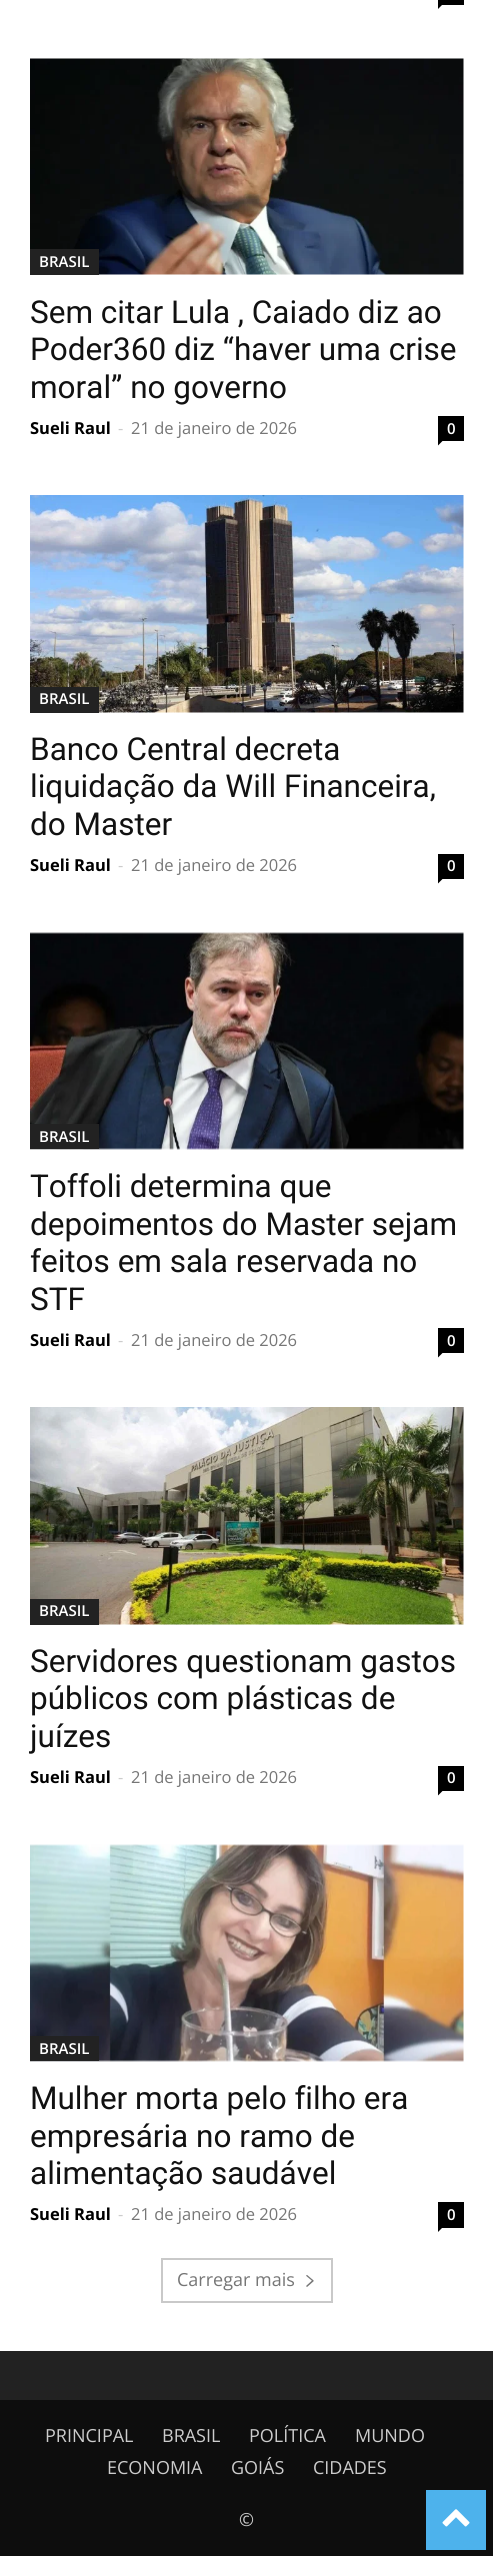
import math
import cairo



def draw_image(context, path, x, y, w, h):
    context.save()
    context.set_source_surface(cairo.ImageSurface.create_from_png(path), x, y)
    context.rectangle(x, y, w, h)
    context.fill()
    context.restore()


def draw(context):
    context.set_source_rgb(1, 1, 1)
    context.paint()
    context.set_source_rgb(0, 0, 0)
    context.rectangle(438, 0, 26, 5)
    context.fill()
    context.new_path()
    context.move_to(438, 4.5)
    context.line_to(442.5, 4.5)
    context.line_to(438, 9)
    context.close_path()
    context.fill()
    draw_image(context, "images/1.png", 30, 58, 434, 217)
    context.set_source_rgb(34 / 255, 34 / 255, 34 / 255)
    context.rectangle(30, 249, 69, 26)
    context.fill()
    context.set_source_rgb(0, 0, 0)
    context.rectangle(438, 416, 26, 25)
    context.fill()
    context.new_path()
    context.move_to(438, 441)
    context.line_to(442.5, 441)
    context.line_to(438, 445.5)
    context.close_path()
    context.fill()
    draw_image(context, "images/2.png", 30, 495, 434, 218)
    context.set_source_rgb(34 / 255, 34 / 255, 34 / 255)
    context.rectangle(30, 687, 69, 26)
    context.fill()
    context.set_source_rgb(0, 0, 0)
    context.rectangle(438, 854, 26, 25)
    context.fill()
    context.new_path()
    context.move_to(438, 879)
    context.line_to(442.5, 879)
    context.line_to(438, 883.5)
    context.close_path()
    context.fill()
    draw_image(context, "images/3.png", 30, 932, 434, 218)
    context.set_source_rgb(34 / 255, 34 / 255, 34 / 255)
    context.rectangle(30, 1124, 69, 25)
    context.fill()
    context.set_source_rgb(0, 0, 0)
    context.rectangle(438, 1328, 26, 25)
    context.fill()
    context.new_path()
    context.move_to(438, 1353)
    context.line_to(442.5, 1353)
    context.line_to(438, 1357.5)
    context.close_path()
    context.fill()
    draw_image(context, "images/4.png", 30, 1407, 434, 218)
    context.set_source_rgb(34 / 255, 34 / 255, 34 / 255)
    context.rectangle(30, 1599, 69, 26)
    context.fill()
    context.set_source_rgb(0, 0, 0)
    context.rectangle(438, 1766, 26, 25)
    context.fill()
    context.new_path()
    context.move_to(438, 1791)
    context.line_to(442.5, 1791)
    context.line_to(438, 1795.5)
    context.close_path()
    context.fill()
    draw_image(context, "images/5.png", 30, 1844, 434, 218)
    context.set_source_rgb(34 / 255, 34 / 255, 34 / 255)
    context.rectangle(30, 2036, 69, 25)
    context.fill()
    context.set_source_rgb(0, 0, 0)
    context.rectangle(438, 2202, 26, 26)
    context.fill()
    context.new_path()
    context.move_to(438, 2227.5)
    context.line_to(442.5, 2227.5)
    context.line_to(438, 2232)
    context.close_path()
    context.fill()
    context.rectangle(162, 2259, 170, 43)
    context.set_source_rgb(201 / 255, 201 / 255, 201 / 255)
    context.stroke()
    draw_image(context, "images/6.png", 306, 2275, 8, 12)
    context.set_source_rgb(34 / 255, 34 / 255, 34 / 255)
    context.rectangle(0, 2351, 493, 49)
    context.fill()
    context.set_source_rgb(13 / 255, 13 / 255, 13 / 255)
    context.rectangle(0, 2400, 493, 156)
    context.fill()
    context.set_source_rgb(77 / 255, 178 / 255, 236 / 255)
    context.rectangle(426, 2490, 60, 60)
    context.fill()
    draw_image(context, "images/7.png", 442, 2509, 28, 18)
    context.select_font_face("Open Sans SemiBold")
    context.set_font_size(15)
    context.set_source_rgb(1, 1, 1)
    context.move_to(39, 267)
    context.show_text("BRASIL")
    context.select_font_face("Roboto")
    context.set_font_size(31.5)
    context.set_source_rgb(17 / 255, 17 / 255, 17 / 255)
    context.move_to(30, 323)
    context.show_text("Sem citar Lula , Caiado diz ao")
    context.move_to(30, 360)
    context.show_text("Poder360 diz “haver uma crise")
    context.move_to(30, 398)
    context.show_text("moral” no governo")
    context.select_font_face("Open Sans", cairo.FontSlant.NORMAL, cairo.FontWeight.BOLD)
    context.set_font_size(16.5)
    context.set_source_rgb(0, 0, 0)
    context.move_to(30, 434)
    context.show_text("Sueli Raul")
    context.select_font_face("Open Sans")
    context.set_source_rgb(204 / 255, 204 / 255, 204 / 255)
    context.move_to(118, 434)
    context.show_text("-")
    context.set_source_rgb(118 / 255, 118 / 255, 118 / 255)
    context.move_to(131, 434)
    context.show_text("21 de janeiro de 2026")
    context.select_font_face("Open Sans SemiBold")
    context.set_font_size(15)
    context.set_source_rgb(1, 1, 1)
    context.move_to(447, 434)
    context.show_text("0")
    context.move_to(39, 704)
    context.show_text("BRASIL")
    context.select_font_face("Roboto")
    context.set_font_size(31.5)
    context.set_source_rgb(17 / 255, 17 / 255, 17 / 255)
    context.move_to(30, 760)
    context.show_text("Banco Central decreta")
    context.move_to(30, 797)
    context.show_text("liquidação da Will Financeira,")
    context.move_to(30, 835)
    context.show_text("do Master")
    context.select_font_face("Open Sans", cairo.FontSlant.NORMAL, cairo.FontWeight.BOLD)
    context.set_font_size(16.5)
    context.set_source_rgb(0, 0, 0)
    context.move_to(30, 871)
    context.show_text("Sueli Raul")
    context.select_font_face("Open Sans")
    context.set_source_rgb(204 / 255, 204 / 255, 204 / 255)
    context.move_to(118, 871)
    context.show_text("-")
    context.set_source_rgb(118 / 255, 118 / 255, 118 / 255)
    context.move_to(131, 871)
    context.show_text("21 de janeiro de 2026")
    context.select_font_face("Open Sans SemiBold")
    context.set_font_size(15)
    context.set_source_rgb(1, 1, 1)
    context.move_to(447, 871)
    context.show_text("0")
    context.move_to(39, 1142)
    context.show_text("BRASIL")
    context.select_font_face("Roboto")
    context.set_font_size(31.5)
    context.set_source_rgb(17 / 255, 17 / 255, 17 / 255)
    context.move_to(30, 1197)
    context.show_text("Toffoli determina que")
    context.move_to(30, 1235)
    context.show_text("depoimentos do Master sejam")
    context.move_to(30, 1272)
    context.show_text("feitos em sala reservada no")
    context.move_to(30, 1310)
    context.show_text("STF")
    context.select_font_face("Open Sans", cairo.FontSlant.NORMAL, cairo.FontWeight.BOLD)
    context.set_font_size(16.5)
    context.set_source_rgb(0, 0, 0)
    context.move_to(30, 1346)
    context.show_text("Sueli Raul")
    context.select_font_face("Open Sans")
    context.set_source_rgb(204 / 255, 204 / 255, 204 / 255)
    context.move_to(118, 1346)
    context.show_text("-")
    context.set_source_rgb(118 / 255, 118 / 255, 118 / 255)
    context.move_to(131, 1346)
    context.show_text("21 de janeiro de 2026")
    context.select_font_face("Open Sans SemiBold")
    context.set_font_size(15)
    context.set_source_rgb(1, 1, 1)
    context.move_to(447, 1346)
    context.show_text("0")
    context.move_to(39, 1616)
    context.show_text("BRASIL")
    context.select_font_face("Roboto")
    context.set_font_size(31.5)
    context.set_source_rgb(17 / 255, 17 / 255, 17 / 255)
    context.move_to(30, 1672)
    context.show_text("Servidores questionam gastos")
    context.move_to(30, 1709)
    context.show_text("públicos com plásticas de")
    context.move_to(30, 1747)
    context.show_text("juízes")
    context.select_font_face("Open Sans", cairo.FontSlant.NORMAL, cairo.FontWeight.BOLD)
    context.set_font_size(16.5)
    context.set_source_rgb(0, 0, 0)
    context.move_to(30, 1783)
    context.show_text("Sueli Raul")
    context.select_font_face("Open Sans")
    context.set_source_rgb(204 / 255, 204 / 255, 204 / 255)
    context.move_to(118, 1783)
    context.show_text("-")
    context.set_source_rgb(118 / 255, 118 / 255, 118 / 255)
    context.move_to(131, 1783)
    context.show_text("21 de janeiro de 2026")
    context.select_font_face("Open Sans SemiBold")
    context.set_font_size(15)
    context.set_source_rgb(1, 1, 1)
    context.move_to(447, 1783)
    context.show_text("0")
    context.move_to(39, 2054)
    context.show_text("BRASIL")
    context.select_font_face("Roboto")
    context.set_font_size(31.5)
    context.set_source_rgb(17 / 255, 17 / 255, 17 / 255)
    context.move_to(30, 2109)
    context.show_text("Mulher morta pelo filho era")
    context.move_to(30, 2147)
    context.show_text("empresária no ramo de")
    context.move_to(30, 2184)
    context.show_text("alimentação saudável")
    context.select_font_face("Open Sans", cairo.FontSlant.NORMAL, cairo.FontWeight.BOLD)
    context.set_font_size(16.5)
    context.set_source_rgb(0, 0, 0)
    context.move_to(30, 2220)
    context.show_text("Sueli Raul")
    context.select_font_face("Open Sans")
    context.set_source_rgb(204 / 255, 204 / 255, 204 / 255)
    context.move_to(118, 2220)
    context.show_text("-")
    context.set_source_rgb(118 / 255, 118 / 255, 118 / 255)
    context.move_to(131, 2220)
    context.show_text("21 de janeiro de 2026")
    context.select_font_face("Open Sans SemiBold")
    context.set_font_size(15)
    context.set_source_rgb(1, 1, 1)
    context.move_to(447, 2220)
    context.show_text("0")
    context.select_font_face("Open Sans")
    context.set_font_size(18)
    context.set_source_rgb(118 / 255, 118 / 255, 118 / 255)
    context.move_to(177, 2286)
    context.show_text("Carregar mais")
    context.set_source_rgb(204 / 255, 204 / 255, 204 / 255)
    context.move_to(45, 2442)
    context.show_text("PRINCIPAL")
    context.move_to(162, 2442)
    context.show_text("BRASIL")
    context.move_to(249, 2442)
    context.show_text("POLÍTICA")
    context.move_to(355, 2442)
    context.show_text("MUNDO")
    context.move_to(107, 2474)
    context.show_text("ECONOMIA")
    context.move_to(231, 2474)
    context.show_text("GOIÁS")
    context.move_to(313, 2474)
    context.show_text("CIDADES")
    context.move_to(239, 2526)
    context.show_text("©")


surface = cairo.ImageSurface(cairo.Format.RGB24, 493, 2556)
context = cairo.Context(surface)
options = cairo.FontOptions()
options.set_hint_metrics(cairo.HintMetrics.OFF)
options.set_hint_style(cairo.HintStyle.NONE)
context.set_font_options(options)
context.set_miter_limit(4)
draw(context)
surface.write_to_png("out.png")
